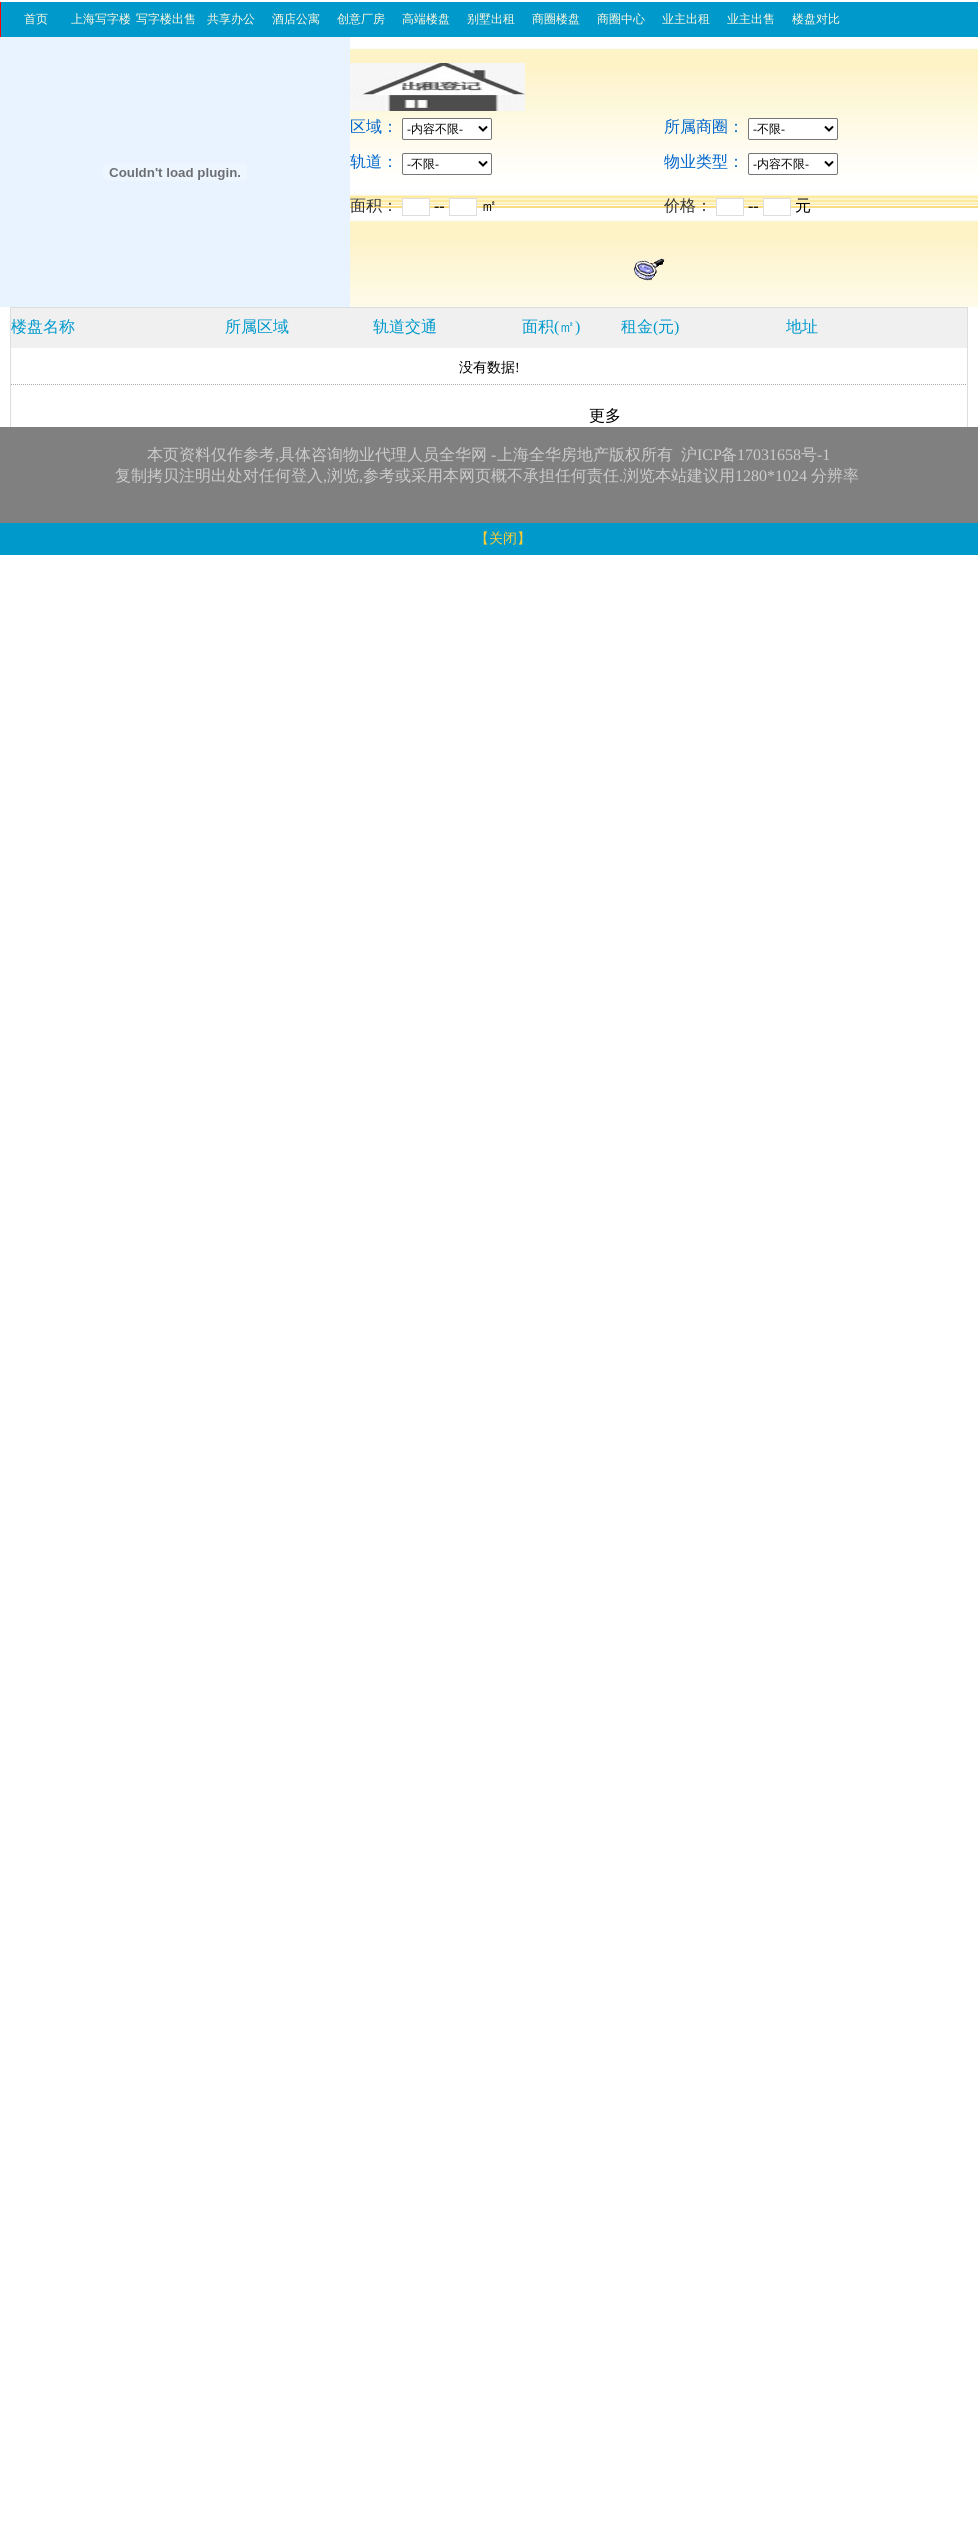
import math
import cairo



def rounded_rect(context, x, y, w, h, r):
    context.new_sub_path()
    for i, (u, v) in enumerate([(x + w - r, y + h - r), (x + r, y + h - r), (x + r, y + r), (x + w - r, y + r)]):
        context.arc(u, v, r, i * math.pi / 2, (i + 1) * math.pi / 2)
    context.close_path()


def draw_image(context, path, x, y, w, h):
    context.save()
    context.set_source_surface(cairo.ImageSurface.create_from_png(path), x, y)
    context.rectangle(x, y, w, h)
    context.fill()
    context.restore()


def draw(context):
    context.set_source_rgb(1, 1, 1)
    context.paint()
    context.set_source_rgb(0, 153 / 255, 204 / 255)
    context.rectangle(1, 2, 977, 35)
    context.fill()
    context.set_source_rgb(1, 0, 0)
    context.rectangle(0, 2, 1, 35)
    context.fill()
    context.set_source_rgb(232 / 255, 243 / 255, 1)
    context.rectangle(0, 37, 350, 270)
    context.fill()
    draw_image(context, "images/1.png", 103, 163, 144, 18)
    draw_image(context, "images/2.png", 350, 48, 628, 259)
    draw_image(context, "images/3.png", 350, 63, 175, 48)
    context.set_source_rgb(1, 1, 1)
    rounded_rect(context, 402.5, 118.5, 89, 21, 1.5)
    context.fill_preserve()
    context.set_source_rgb(118 / 255, 118 / 255, 118 / 255)
    context.set_line_width(1)
    context.stroke()
    context.new_path()
    context.move_to(479, 126.5)
    context.line_to(483, 130.5)
    context.line_to(487, 126.5)
    context.set_source_rgb(0, 0, 0)
    context.set_line_width(2)
    context.stroke()
    context.set_source_rgb(1, 1, 1)
    rounded_rect(context, 748.5, 118.5, 89, 21, 1.5)
    context.fill_preserve()
    context.set_source_rgb(118 / 255, 118 / 255, 118 / 255)
    context.set_line_width(1)
    context.stroke()
    context.new_path()
    context.move_to(825, 126.5)
    context.line_to(829, 130.5)
    context.line_to(833, 126.5)
    context.set_source_rgb(0, 0, 0)
    context.set_line_width(2)
    context.stroke()
    context.set_source_rgb(1, 1, 1)
    rounded_rect(context, 402.5, 153.5, 89, 21, 1.5)
    context.fill_preserve()
    context.set_source_rgb(118 / 255, 118 / 255, 118 / 255)
    context.set_line_width(1)
    context.stroke()
    context.new_path()
    context.move_to(479, 161.5)
    context.line_to(483, 165.5)
    context.line_to(487, 161.5)
    context.set_source_rgb(0, 0, 0)
    context.set_line_width(2)
    context.stroke()
    context.set_source_rgb(1, 1, 1)
    rounded_rect(context, 748.5, 153.5, 89, 21, 1.5)
    context.fill_preserve()
    context.set_source_rgb(118 / 255, 118 / 255, 118 / 255)
    context.set_line_width(1)
    context.stroke()
    context.new_path()
    context.move_to(825, 161.5)
    context.line_to(829, 165.5)
    context.line_to(833, 161.5)
    context.set_source_rgb(0, 0, 0)
    context.set_line_width(2)
    context.stroke()
    context.set_source_rgb(1, 1, 1)
    context.rectangle(403, 199, 26, 10)
    context.fill()
    context.rectangle(402.5, 198.5, 27, 17)
    context.set_source_rgb(221 / 255, 221 / 255, 221 / 255)
    context.set_line_width(1)
    context.stroke()
    context.set_source_rgb(1, 1, 1)
    context.rectangle(450, 199, 26, 10)
    context.fill()
    context.rectangle(449.5, 198.5, 27, 17)
    context.set_source_rgb(221 / 255, 221 / 255, 221 / 255)
    context.stroke()
    context.set_source_rgb(1, 1, 1)
    context.rectangle(717, 199, 26, 10)
    context.fill()
    context.rectangle(716.5, 198.5, 27, 17)
    context.set_source_rgb(221 / 255, 221 / 255, 221 / 255)
    context.stroke()
    context.set_source_rgb(1, 1, 1)
    context.rectangle(764, 199, 26, 10)
    context.fill()
    context.rectangle(763.5, 198.5, 27, 17)
    context.set_source_rgb(221 / 255, 221 / 255, 221 / 255)
    context.stroke()
    draw_image(context, "images/4.png", 634, 258, 31, 23)
    context.rectangle(10, 307, 958, 1)
    context.fill()
    context.rectangle(967, 307, 1, 120)
    context.fill()
    context.rectangle(10, 307, 1, 120)
    context.fill()
    context.set_source_rgb(240 / 255, 240 / 255, 240 / 255)
    context.rectangle(11, 308, 956, 40)
    context.fill()
    context.new_path()
    context.move_to(11, 384.5)
    context.line_to(967, 384.5)
    context.set_source_rgb(169 / 255, 169 / 255, 169 / 255)
    context.set_dash([1, 1])
    context.stroke()
    context.set_source_rgb(128 / 255, 128 / 255, 128 / 255)
    context.rectangle(0, 427, 978, 96)
    context.fill()
    context.set_source_rgb(0, 153 / 255, 204 / 255)
    context.rectangle(0, 523, 978, 32)
    context.fill()
    context.select_font_face("WenQuanYi Zen Hei Medium")
    context.set_font_size(12)
    context.set_source_rgb(1, 249 / 255, 226 / 255)
    context.move_to(24, 23)
    context.show_text("首页")
    context.move_to(71, 23)
    context.show_text("上海写字楼")
    context.move_to(136, 23)
    context.show_text("写字楼出售")
    context.move_to(207, 23)
    context.show_text("共享办公")
    context.move_to(272, 23)
    context.show_text("酒店公寓")
    context.move_to(337, 23)
    context.show_text("创意厂房")
    context.move_to(402, 23)
    context.show_text("高端楼盘")
    context.move_to(467, 23)
    context.show_text("别墅出租")
    context.move_to(532, 23)
    context.show_text("商圈楼盘")
    context.move_to(597, 23)
    context.show_text("商圈中心")
    context.move_to(662, 23)
    context.show_text("业主出租")
    context.move_to(727, 23)
    context.show_text("业主出售")
    context.move_to(792, 23)
    context.show_text("楼盘对比")
    context.set_font_size(16)
    context.set_source_rgb(0, 102 / 255, 204 / 255)
    context.move_to(350, 132)
    context.show_text("区域：")
    context.select_font_face("Liberation Serif")
    context.set_font_size(12)
    context.set_source_rgb(0, 0, 0)
    context.move_to(407, 133)
    context.show_text("-")
    context.select_font_face("WenQuanYi Zen Hei Medium")
    context.move_to(411, 133)
    context.show_text("内容不限")
    context.select_font_face("Liberation Serif")
    context.move_to(459, 133)
    context.show_text("-")
    context.select_font_face("WenQuanYi Zen Hei Medium")
    context.set_font_size(16)
    context.set_source_rgb(0, 102 / 255, 204 / 255)
    context.move_to(664, 132)
    context.show_text("所属商圈：")
    context.select_font_face("Liberation Serif")
    context.set_font_size(12)
    context.set_source_rgb(0, 0, 0)
    context.move_to(753, 133)
    context.show_text("-")
    context.select_font_face("WenQuanYi Zen Hei Medium")
    context.move_to(757, 133)
    context.show_text("不限")
    context.select_font_face("Liberation Serif")
    context.move_to(781, 133)
    context.show_text("-")
    context.select_font_face("WenQuanYi Zen Hei Medium")
    context.set_font_size(16)
    context.set_source_rgb(0, 102 / 255, 204 / 255)
    context.move_to(350, 167)
    context.show_text("轨道：")
    context.select_font_face("Liberation Serif")
    context.set_font_size(12)
    context.set_source_rgb(0, 0, 0)
    context.move_to(407, 168)
    context.show_text("-")
    context.select_font_face("WenQuanYi Zen Hei Medium")
    context.move_to(411, 168)
    context.show_text("不限")
    context.select_font_face("Liberation Serif")
    context.move_to(435, 168)
    context.show_text("-")
    context.select_font_face("WenQuanYi Zen Hei Medium")
    context.set_font_size(16)
    context.set_source_rgb(0, 102 / 255, 204 / 255)
    context.move_to(664, 167)
    context.show_text("物业类型：")
    context.select_font_face("Liberation Serif")
    context.set_font_size(12)
    context.set_source_rgb(0, 0, 0)
    context.move_to(753, 168)
    context.show_text("-")
    context.select_font_face("WenQuanYi Zen Hei Medium")
    context.move_to(757, 168)
    context.show_text("内容不限")
    context.select_font_face("Liberation Serif")
    context.move_to(805, 168)
    context.show_text("-")
    context.select_font_face("WenQuanYi Zen Hei Medium")
    context.set_font_size(16)
    context.set_source_rgb(51 / 255, 51 / 255, 51 / 255)
    context.move_to(350, 211)
    context.show_text("面积：")
    context.select_font_face("Liberation Serif")
    context.set_source_rgb(0, 0, 0)
    context.move_to(434, 211)
    context.show_text("--")
    context.select_font_face("WenQuanYi Zen Hei Medium")
    context.move_to(481, 211)
    context.show_text("㎡")
    context.set_source_rgb(51 / 255, 51 / 255, 51 / 255)
    context.move_to(664, 211)
    context.show_text("价格：")
    context.select_font_face("Liberation Serif")
    context.set_source_rgb(0, 0, 0)
    context.move_to(748, 211)
    context.show_text("--")
    context.select_font_face("WenQuanYi Zen Hei Medium")
    context.move_to(795, 211)
    context.show_text("元")
    context.set_source_rgb(0, 153 / 255, 204 / 255)
    context.move_to(11, 332)
    context.show_text("楼盘名称")
    context.move_to(225, 332)
    context.show_text("所属区域")
    context.move_to(373, 332)
    context.show_text("轨道交通")
    context.move_to(522, 332)
    context.show_text("面积")
    context.select_font_face("Liberation Serif")
    context.move_to(554, 332)
    context.show_text("(")
    context.select_font_face("WenQuanYi Zen Hei Medium")
    context.move_to(559, 332)
    context.show_text("㎡")
    context.select_font_face("Liberation Serif")
    context.move_to(575, 332)
    context.show_text(")")
    context.select_font_face("WenQuanYi Zen Hei Medium")
    context.move_to(621, 332)
    context.show_text("租金")
    context.select_font_face("Liberation Serif")
    context.move_to(653, 332)
    context.show_text("(")
    context.select_font_face("WenQuanYi Zen Hei Medium")
    context.move_to(658, 332)
    context.show_text("元")
    context.select_font_face("Liberation Serif")
    context.move_to(674, 332)
    context.show_text(")")
    context.select_font_face("WenQuanYi Zen Hei Medium")
    context.move_to(786, 332)
    context.show_text("地址")
    context.set_font_size(14)
    context.set_source_rgb(0, 0, 0)
    context.move_to(459, 372)
    context.show_text("没有数据")
    context.select_font_face("Liberation Serif")
    context.move_to(515, 372)
    context.show_text("!")
    context.select_font_face("WenQuanYi Zen Hei Medium")
    context.set_font_size(16)
    context.move_to(589, 421)
    context.show_text("更多")
    context.set_source_rgb(204 / 255, 204 / 255, 204 / 255)
    context.move_to(147, 460)
    context.show_text("本页资料仅作参考")
    context.move_to(279, 460)
    context.show_text("具体咨询物业代理人员全华网")
    context.select_font_face("Liberation Serif")
    context.move_to(491, 460)
    context.show_text("-")
    context.select_font_face("WenQuanYi Zen Hei Medium")
    context.move_to(497, 460)
    context.show_text("上海全华房地产版权所有")
    context.move_to(681, 460)
    context.show_text("沪")
    context.select_font_face("Liberation Serif")
    context.move_to(697, 460)
    context.show_text("ICP")
    context.select_font_face("WenQuanYi Zen Hei Medium")
    context.move_to(721, 460)
    context.show_text("备")
    context.select_font_face("Liberation Serif")
    context.move_to(737, 460)
    context.show_text("17031658")
    context.select_font_face("WenQuanYi Zen Hei Medium")
    context.move_to(801, 460)
    context.show_text("号")
    context.select_font_face("Liberation Serif")
    context.move_to(817, 460)
    context.show_text("-1")
    context.move_to(275, 460)
    context.show_text(",")
    context.select_font_face("WenQuanYi Zen Hei Medium")
    context.move_to(115, 481)
    context.show_text("复制拷贝注明出处对任何登入")
    context.select_font_face("Liberation Serif")
    context.move_to(323, 481)
    context.show_text(",")
    context.select_font_face("WenQuanYi Zen Hei Medium")
    context.move_to(327, 481)
    context.show_text("浏览")
    context.select_font_face("Liberation Serif")
    context.move_to(359, 481)
    context.show_text(",")
    context.select_font_face("WenQuanYi Zen Hei Medium")
    context.move_to(363, 481)
    context.show_text("参考或采用本网页概不承担任何责任")
    context.select_font_face("Liberation Serif")
    context.move_to(619, 481)
    context.show_text(".")
    context.select_font_face("WenQuanYi Zen Hei Medium")
    context.move_to(623, 481)
    context.show_text("浏览本站建议用")
    context.select_font_face("Liberation Serif")
    context.move_to(735, 481)
    context.show_text("1280*1024")
    context.select_font_face("WenQuanYi Zen Hei Medium")
    context.move_to(811, 481)
    context.show_text("分辨率")
    context.set_font_size(14)
    context.set_source_rgb(1, 204 / 255, 51 / 255)
    context.move_to(475, 543)
    context.show_text("【关闭】")


surface = cairo.ImageSurface(cairo.Format.RGB24, 978, 2522)
context = cairo.Context(surface)
options = cairo.FontOptions()
options.set_hint_metrics(cairo.HintMetrics.OFF)
options.set_hint_style(cairo.HintStyle.NONE)
context.set_font_options(options)
context.set_miter_limit(4)
draw(context)
surface.write_to_png("out.png")
